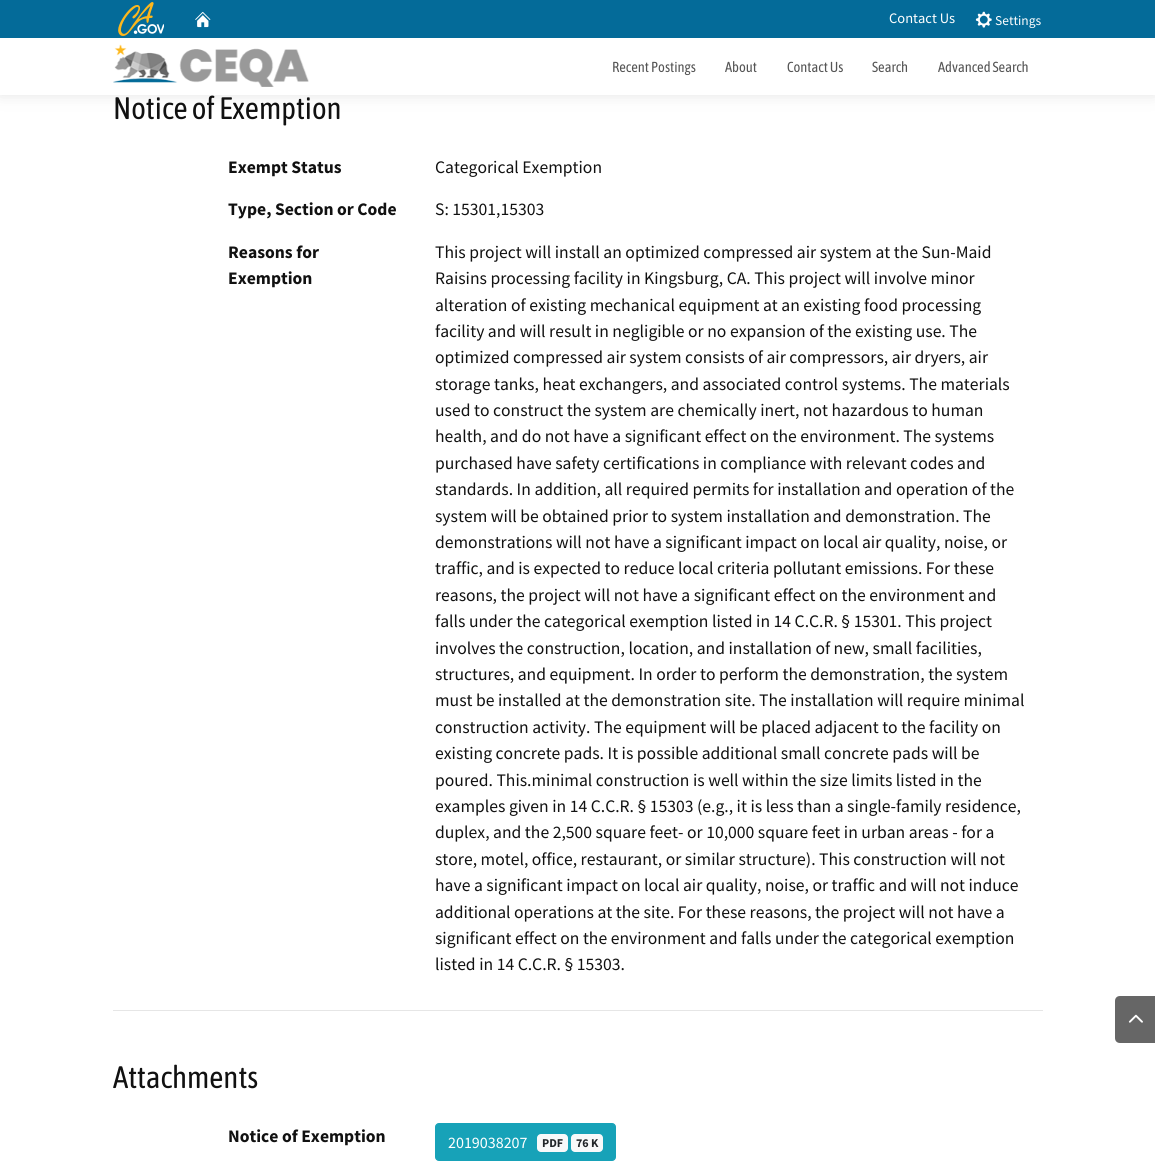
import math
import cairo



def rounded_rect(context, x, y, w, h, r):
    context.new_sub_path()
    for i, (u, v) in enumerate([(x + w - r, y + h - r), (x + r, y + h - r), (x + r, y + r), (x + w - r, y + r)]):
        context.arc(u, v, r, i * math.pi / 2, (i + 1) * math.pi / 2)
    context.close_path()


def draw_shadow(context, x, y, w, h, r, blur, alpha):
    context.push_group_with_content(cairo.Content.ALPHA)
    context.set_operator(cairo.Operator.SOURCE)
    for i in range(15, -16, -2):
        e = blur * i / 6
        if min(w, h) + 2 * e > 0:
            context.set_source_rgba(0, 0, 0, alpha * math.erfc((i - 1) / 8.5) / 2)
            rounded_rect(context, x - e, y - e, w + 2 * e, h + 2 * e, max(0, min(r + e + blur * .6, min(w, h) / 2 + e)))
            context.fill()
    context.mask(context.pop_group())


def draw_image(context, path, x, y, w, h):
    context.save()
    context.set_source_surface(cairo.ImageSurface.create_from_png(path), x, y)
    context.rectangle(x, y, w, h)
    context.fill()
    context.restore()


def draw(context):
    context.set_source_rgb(1, 1, 1)
    context.paint()
    context.set_source_rgb(189 / 255, 189 / 255, 189 / 255)
    draw_shadow(context, 0, 0, 1155, 95, 0, 7.5, 0.4)
    context.set_source_rgb(1, 1, 1)
    context.rectangle(0, 38, 1155, 57)
    context.fill()
    context.set_source_rgb(4 / 255, 107 / 255, 153 / 255)
    context.rectangle(0, 0, 1155, 38)
    context.fill()
    draw_image(context, "images/1.png", 118, 2, 46, 34)
    draw_image(context, "images/2.png", 195, 11, 16, 17)
    draw_image(context, "images/3.png", 975, 11, 17, 17)
    draw_image(context, "images/4.png", 113, 44, 196, 43)
    context.set_source_rgb(230 / 255, 230 / 255, 230 / 255)
    context.rectangle(113, 1010, 930, 1)
    context.fill()
    context.set_source_rgb(23 / 255, 162 / 255, 184 / 255)
    rounded_rect(context, 435.5, 1123.5, 180, 37, 3.5)
    context.fill_preserve()
    context.set_line_width(1)
    context.stroke()
    context.set_source_rgb(248 / 255, 249 / 255, 250 / 255)
    rounded_rect(context, 537, 1134, 31, 18, 4)
    context.fill()
    rounded_rect(context, 571, 1134, 32, 18, 4)
    context.fill()
    context.set_source_rgb(102 / 255, 102 / 255, 102 / 255)
    context.new_path()
    context.move_to(1120, 996)
    context.line_to(1155, 996)
    context.line_to(1155, 1043)
    context.line_to(1120, 1043)
    context.curve_to(1117, 1043, 1115, 1041, 1115, 1038)
    context.line_to(1115, 1001)
    context.curve_to(1115, 998, 1117, 996, 1120, 996)
    context.close_path()
    context.fill()
    draw_image(context, "images/5.png", 1128, 1014, 15, 9)
    context.select_font_face("Source Sans Pro")
    context.set_font_size(14.5)
    context.set_source_rgb(1, 1, 1)
    context.move_to(889, 23)
    context.show_text("Contact Us")
    context.set_font_size(13.5)
    context.move_to(995, 25)
    context.show_text("Settings")
    context.select_font_face("Asap Condensed")
    context.set_font_size(14.5)
    context.set_source_rgb(85 / 255, 85 / 255, 85 / 255)
    context.move_to(612, 72)
    context.show_text("Recent Postings")
    context.move_to(725, 72)
    context.show_text("About")
    context.move_to(787, 72)
    context.show_text("Contact Us")
    context.move_to(872, 72)
    context.show_text("Search")
    context.move_to(938, 72)
    context.show_text("Advanced Search")
    context.set_font_size(31)
    context.set_source_rgb(17 / 255, 17 / 255, 17 / 255)
    context.move_to(113, 119)
    context.show_text("Notice of Exemption")
    context.select_font_face("Source Sans Pro", cairo.FontSlant.NORMAL, cairo.FontWeight.BOLD)
    context.set_font_size(17.6)
    context.move_to(228, 173)
    context.show_text("Exempt Status")
    context.select_font_face("Source Sans Pro")
    context.move_to(435, 173)
    context.show_text("Categorical Exemption")
    context.select_font_face("Source Sans Pro", cairo.FontSlant.NORMAL, cairo.FontWeight.BOLD)
    context.move_to(228, 215)
    context.show_text("Type, Section or Code")
    context.select_font_face("Source Sans Pro")
    context.move_to(435, 215)
    context.show_text("S: 15301,15303")
    context.select_font_face("Source Sans Pro", cairo.FontSlant.NORMAL, cairo.FontWeight.BOLD)
    context.move_to(228, 258)
    context.show_text("Reasons for")
    context.move_to(228, 284)
    context.show_text("Exemption")
    context.select_font_face("Source Sans Pro")
    context.move_to(435, 258)
    context.show_text("This project will install an optimized compressed air system at the Sun-Maid")
    context.move_to(435, 284)
    context.show_text("Raisins processing facility in Kingsburg, CA. This project will involve minor")
    context.move_to(435, 311)
    context.show_text("alteration of existing mechanical equipment at an existing food processing")
    context.move_to(435, 337)
    context.show_text("facility and will result in negligible or no expansion of the existing use. The")
    context.move_to(435, 363)
    context.show_text("optimized compressed air system consists of air compressors, air dryers, air")
    context.move_to(435, 390)
    context.show_text("storage tanks, heat exchangers, and associated control systems. The materials")
    context.move_to(435, 416)
    context.show_text("used to construct the system are chemically inert, not hazardous to human")
    context.move_to(435, 442)
    context.show_text("health, and do not have a significant effect on the environment. The systems")
    context.move_to(435, 469)
    context.show_text("purchased have safety certifications in compliance with relevant codes and")
    context.move_to(435, 495)
    context.show_text("standards. In addition, all required permits for installation and operation of the")
    context.move_to(435, 522)
    context.show_text("system will be obtained prior to system installation and demonstration. The")
    context.move_to(435, 548)
    context.show_text("demonstrations will not have a significant impact on local air quality, noise, or")
    context.move_to(435, 574)
    context.show_text("traffic, and is expected to reduce local criteria pollutant emissions. For these")
    context.move_to(435, 601)
    context.show_text("reasons, the project will not have a significant effect on the environment and")
    context.move_to(435, 627)
    context.show_text("falls under the categorical exemption listed in 14 C.C.R. § 15301. This project")
    context.move_to(435, 654)
    context.show_text("involves the construction, location, and installation of new, small facilities,")
    context.move_to(435, 680)
    context.show_text("structures, and equipment. In order to perform the demonstration, the system")
    context.move_to(435, 706)
    context.show_text("must be installed at the demonstration site. The installation will require minimal")
    context.move_to(435, 733)
    context.show_text("construction activity. The equipment will be placed adjacent to the facility on")
    context.move_to(435, 759)
    context.show_text("existing concrete pads. It is possible additional small concrete pads will be")
    context.move_to(435, 786)
    context.show_text("poured. This.minimal construction is well within the size limits listed in the")
    context.move_to(435, 812)
    context.show_text("examples given in 14 C.C.R. § 15303 (e.g., it is less than a single-family residence,")
    context.move_to(435, 838)
    context.show_text("duplex, and the 2,500 square feet- or 10,000 square feet in urban areas - for a")
    context.move_to(435, 865)
    context.show_text("store, motel, office, restaurant, or similar structure). This construction will not")
    context.move_to(435, 891)
    context.show_text("have a significant impact on local air quality, noise, or traffic and will not induce")
    context.move_to(435, 918)
    context.show_text("additional operations at the site. For these reasons, the project will not have a")
    context.move_to(435, 944)
    context.show_text("significant effect on the environment and falls under the categorical exemption")
    context.move_to(435, 970)
    context.show_text("listed in 14 C.C.R. § 15303.")
    context.select_font_face("Asap Condensed")
    context.set_font_size(31)
    context.move_to(113, 1088)
    context.show_text("Attachments")
    context.select_font_face("Source Sans Pro", cairo.FontSlant.NORMAL, cairo.FontWeight.BOLD)
    context.set_font_size(17.6)
    context.move_to(228, 1142)
    context.show_text("Notice of Exemption")
    context.select_font_face("Source Sans Pro")
    context.set_font_size(16)
    context.set_source_rgb(1, 1, 1)
    context.move_to(448, 1148)
    context.show_text("2019038207")
    context.select_font_face("Source Sans Pro", cairo.FontSlant.NORMAL, cairo.FontWeight.BOLD)
    context.set_font_size(12)
    context.set_source_rgb(33 / 255, 37 / 255, 41 / 255)
    context.move_to(542, 1147)
    context.show_text("PDF")
    context.move_to(576, 1147)
    context.show_text("76 K")


surface = cairo.ImageSurface(cairo.Format.RGB24, 1155, 1168)
context = cairo.Context(surface)
options = cairo.FontOptions()
options.set_hint_metrics(cairo.HintMetrics.OFF)
options.set_hint_style(cairo.HintStyle.NONE)
context.set_font_options(options)
context.set_miter_limit(4)
draw(context)
surface.write_to_png("out.png")
